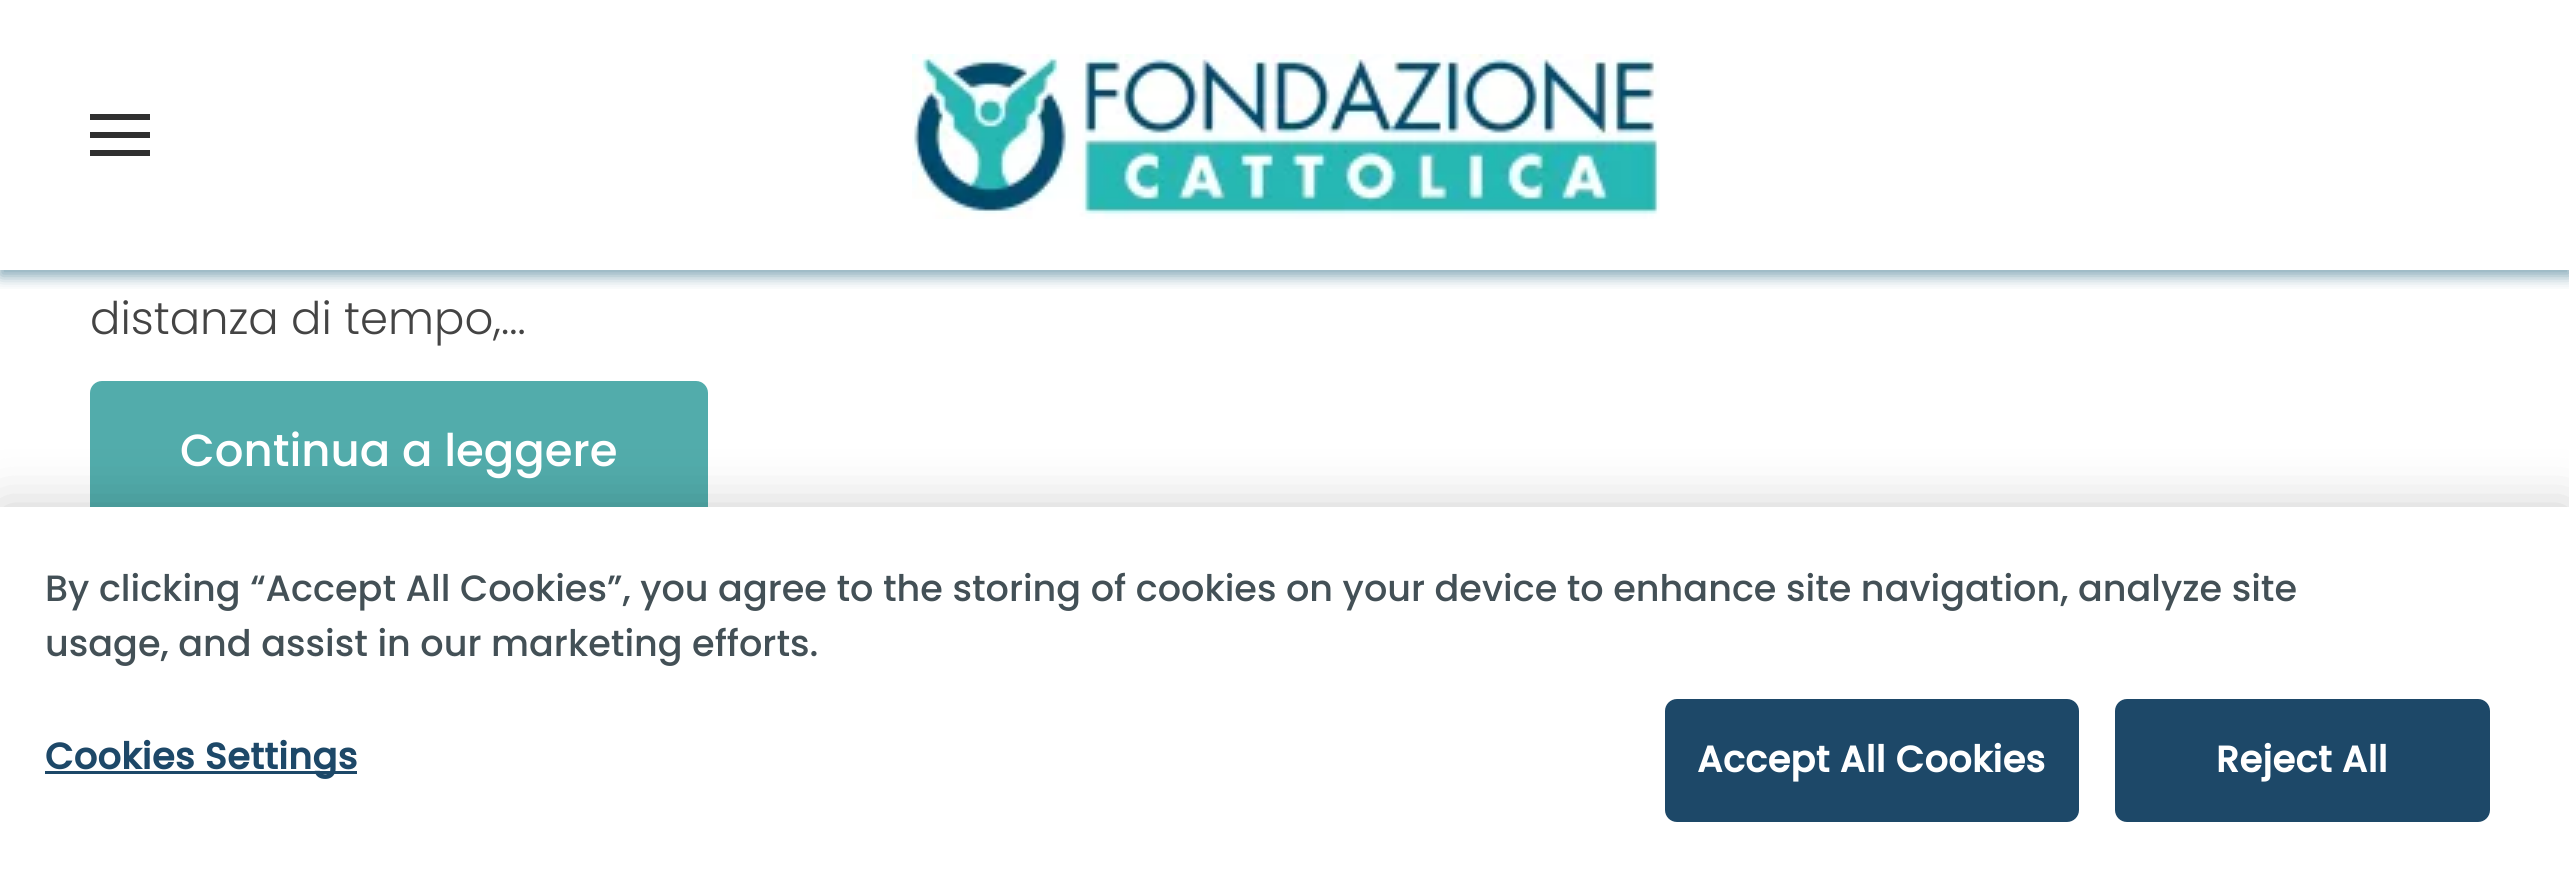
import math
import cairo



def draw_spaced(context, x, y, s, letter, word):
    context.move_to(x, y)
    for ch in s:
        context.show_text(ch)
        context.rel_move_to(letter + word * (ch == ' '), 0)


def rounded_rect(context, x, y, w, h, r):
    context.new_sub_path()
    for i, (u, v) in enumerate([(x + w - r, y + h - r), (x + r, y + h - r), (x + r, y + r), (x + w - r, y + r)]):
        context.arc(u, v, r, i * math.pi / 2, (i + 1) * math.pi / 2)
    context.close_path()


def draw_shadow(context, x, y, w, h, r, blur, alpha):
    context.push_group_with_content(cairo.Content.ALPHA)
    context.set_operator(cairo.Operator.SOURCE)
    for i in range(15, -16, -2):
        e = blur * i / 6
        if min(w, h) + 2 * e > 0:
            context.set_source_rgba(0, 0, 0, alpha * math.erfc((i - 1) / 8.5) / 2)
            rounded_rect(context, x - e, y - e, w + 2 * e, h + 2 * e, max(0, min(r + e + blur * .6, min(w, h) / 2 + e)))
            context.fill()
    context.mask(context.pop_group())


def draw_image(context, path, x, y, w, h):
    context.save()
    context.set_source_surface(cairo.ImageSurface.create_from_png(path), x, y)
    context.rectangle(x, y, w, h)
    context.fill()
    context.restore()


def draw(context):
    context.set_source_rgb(1, 1, 1)
    context.paint()
    context.save()
    context.rectangle(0, 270, 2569, 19)
    context.clip()
    context.set_source_rgb(0, 74 / 255, 105 / 255)
    draw_shadow(context, 0, 6, 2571, 270, 0, 7.5, 0.5)
    context.restore()
    context.set_source_rgb(48 / 255, 48 / 255, 48 / 255)
    context.rectangle(90, 114, 60, 6)
    context.fill()
    context.rectangle(90, 132, 60, 6)
    context.fill()
    context.rectangle(90, 150, 60, 6)
    context.fill()
    draw_image(context, "images/1.png", 912, 54, 748, 165)
    context.set_source_rgb(82 / 255, 172 / 255, 171 / 255)
    rounded_rect(context, 90, 381, 618, 138, 12)
    context.fill()
    context.set_source_rgb(0, 0, 0)
    draw_shadow(context, 0, 507, 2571, 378, 0, 27, 0.2)
    context.set_source_rgb(1, 1, 1)
    context.rectangle(0, 507, 2569, 376)
    context.fill()
    context.set_source_rgb(29 / 255, 72 / 255, 104 / 255)
    context.rectangle(45, 771, 312, 3)
    context.fill()
    rounded_rect(context, 1666.5, 700.5, 411, 120, 10.5)
    context.fill_preserve()
    context.set_line_width(3)
    context.stroke()
    rounded_rect(context, 2116.5, 700.5, 372, 120, 10.5)
    context.fill_preserve()
    context.stroke()
    context.select_font_face("Poppins Light")
    context.set_font_size(45)
    context.set_source_rgb(68 / 255, 68 / 255, 68 / 255)
    context.move_to(90, 334)
    context.show_text("distanza di tempo,...")
    context.select_font_face("Poppins Medium")
    context.set_source_rgb(1, 1, 1)
    context.move_to(180, 466)
    context.show_text("Continua a leggere")
    context.set_font_size(36.6)
    context.set_source_rgb(67 / 255, 80 / 255, 86 / 255)
    context.move_to(45, 601)
    context.show_text("By clicking “Accept All Cookies”, you agree to the storing of cookies on your device to enhance site navigation, analyze site")
    context.move_to(45, 656)
    context.show_text("usage, and assist in our marketing efforts.")
    context.select_font_face("Poppins", cairo.FontSlant.NORMAL, cairo.FontWeight.BOLD)
    context.set_source_rgb(29 / 255, 72 / 255, 104 / 255)
    draw_spaced(context, 45, 769, "Cookies Settings", 0.4, 0)
    context.set_source_rgb(1, 1, 1)
    draw_spaced(context, 1697, 772, "Accept All Cookies", 0.4, 0)
    draw_spaced(context, 2216, 772, "Reject All", 0.4, 0)


surface = cairo.ImageSurface(cairo.Format.RGB24, 2569, 883)
context = cairo.Context(surface)
options = cairo.FontOptions()
options.set_hint_metrics(cairo.HintMetrics.OFF)
options.set_hint_style(cairo.HintStyle.NONE)
context.set_font_options(options)
context.set_miter_limit(4)
draw(context)
surface.write_to_png("out.png")
